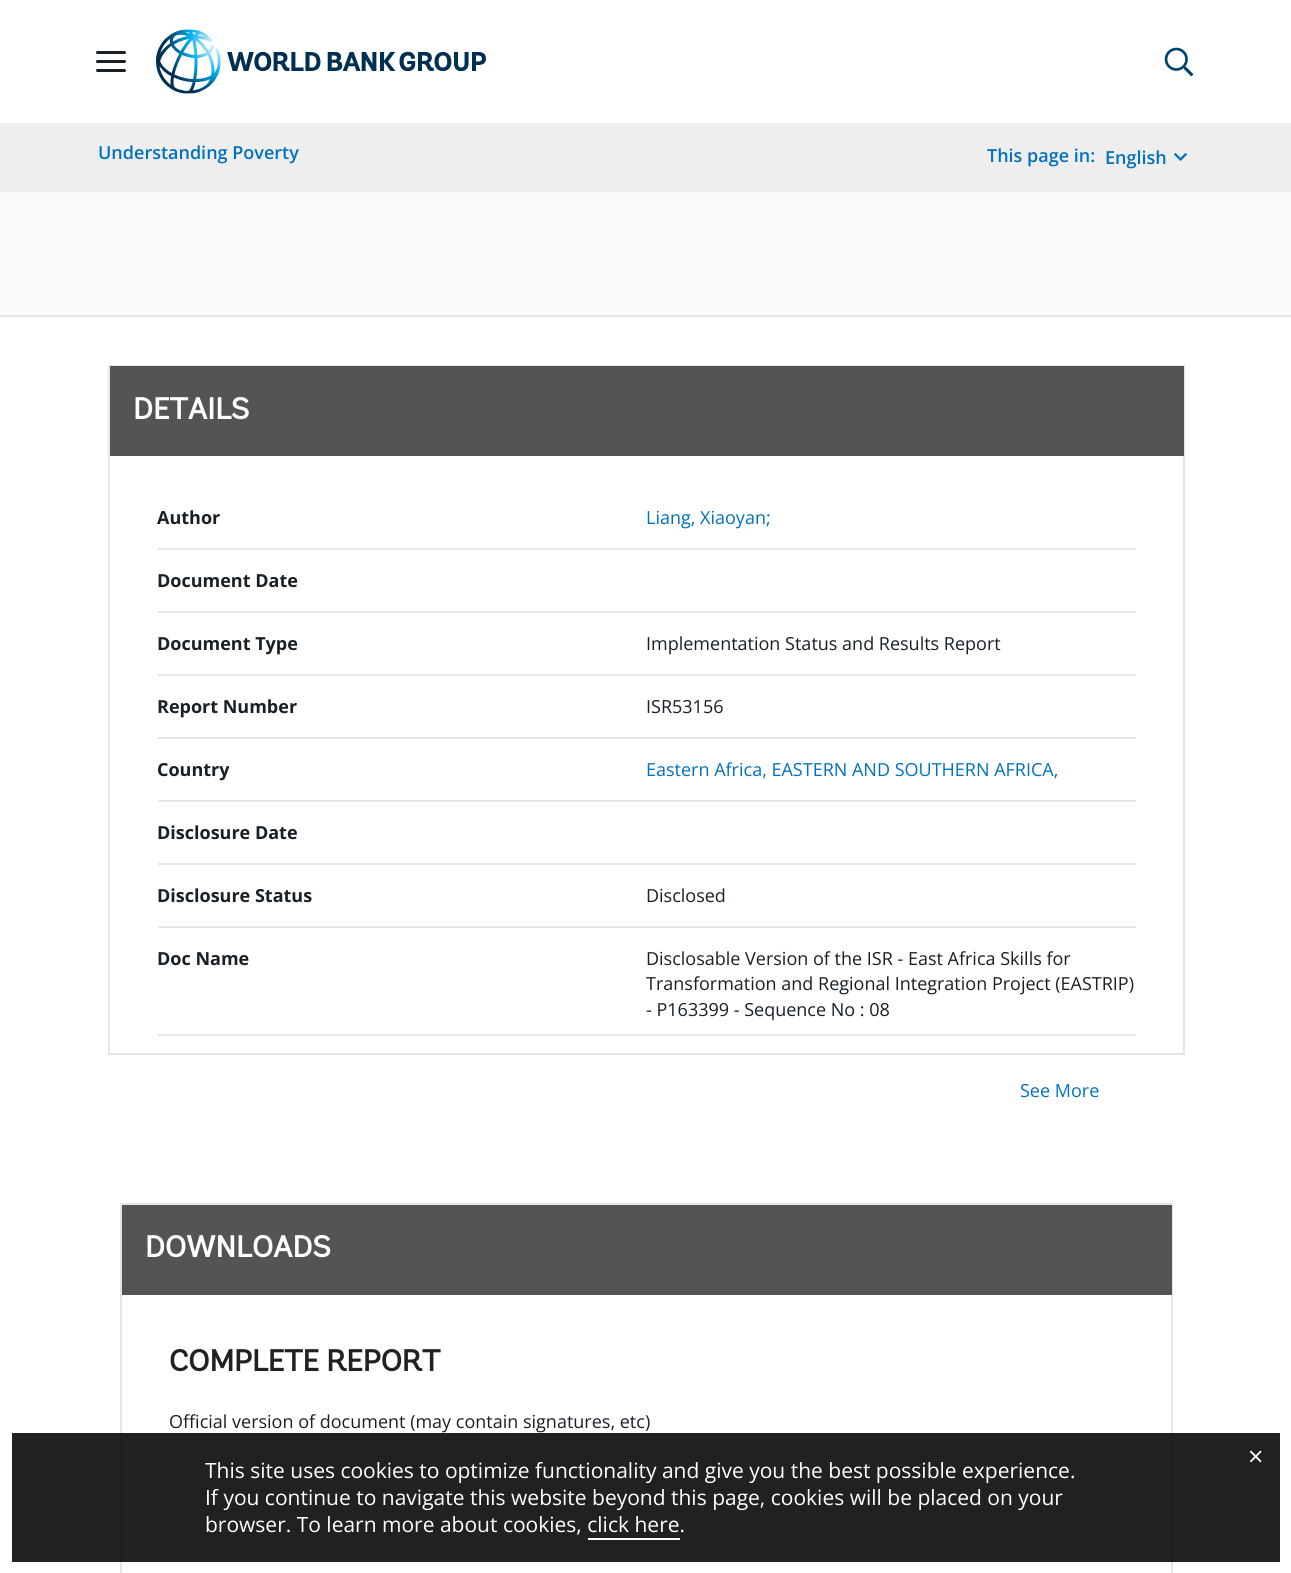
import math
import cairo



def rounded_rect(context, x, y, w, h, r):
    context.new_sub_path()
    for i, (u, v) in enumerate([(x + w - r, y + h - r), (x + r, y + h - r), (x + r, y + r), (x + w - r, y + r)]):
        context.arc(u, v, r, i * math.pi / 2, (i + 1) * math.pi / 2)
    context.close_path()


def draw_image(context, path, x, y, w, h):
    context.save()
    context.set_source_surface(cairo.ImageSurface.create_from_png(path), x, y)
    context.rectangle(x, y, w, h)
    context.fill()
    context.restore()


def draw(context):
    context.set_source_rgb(1, 1, 1)
    context.paint()
    context.set_source_rgb(24 / 255, 31 / 255, 37 / 255)
    rounded_rect(context, 96, 60, 30, 3, 1.5)
    context.fill()
    rounded_rect(context, 96, 51, 30, 3, 1.5)
    context.fill()
    rounded_rect(context, 96, 69, 30, 3, 1.5)
    context.fill()
    draw_image(context, "images/1.png", 156, 29, 330, 65)
    draw_image(context, "images/2.png", 1164, 47, 30, 30)
    context.set_source_rgb(238 / 255, 238 / 255, 238 / 255)
    context.rectangle(0, 123, 1291, 69)
    context.fill()
    draw_image(context, "images/3.png", 1174, 153, 13, 8)
    context.set_source_rgb(250 / 255, 250 / 255, 250 / 255)
    context.rectangle(0, 192, 1291, 123)
    context.fill()
    context.set_source_rgb(229 / 255, 229 / 255, 229 / 255)
    context.rectangle(0, 315, 1291, 2)
    context.fill()
    context.rectangle(109, 366, 1075, 688)
    context.stroke()
    context.set_source_rgb(84 / 255, 84 / 255, 84 / 255)
    context.rectangle(110, 366, 1074, 90)
    context.fill()
    context.set_source_rgb(229 / 255, 229 / 255, 229 / 255)
    context.rectangle(158, 548, 978, 2)
    context.fill()
    context.rectangle(158, 611, 978, 2)
    context.fill()
    context.rectangle(158, 674, 978, 2)
    context.fill()
    context.rectangle(158, 737, 978, 2)
    context.fill()
    context.rectangle(158, 800, 978, 2)
    context.fill()
    context.rectangle(158, 863, 978, 2)
    context.fill()
    context.rectangle(158, 926, 978, 2)
    context.fill()
    context.rectangle(158, 1034, 978, 2)
    context.fill()
    context.rectangle(121, 1204, 1051, 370)
    context.stroke()
    context.set_source_rgb(84 / 255, 84 / 255, 84 / 255)
    context.rectangle(122, 1205, 1050, 90)
    context.fill()
    context.set_source_rgba(0, 0, 0, 0.87)
    context.rectangle(12, 1433, 1268, 129)
    context.fill()
    context.set_source_rgb(1, 1, 1)
    context.rectangle(588, 1538, 92, 2)
    context.fill()
    context.select_font_face("Open Sans SemiBold")
    context.set_font_size(18)
    context.set_source_rgb(0, 113 / 255, 188 / 255)
    context.move_to(98, 159)
    context.show_text("Understanding Poverty")
    context.move_to(987, 162)
    context.show_text("This page in:")
    context.move_to(1105, 164)
    context.show_text("English")
    context.select_font_face("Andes", cairo.FontSlant.NORMAL, cairo.FontWeight.BOLD)
    context.set_font_size(30)
    context.set_source_rgb(1, 1, 1)
    context.move_to(133, 419)
    context.show_text("DETAILS")
    context.select_font_face("Open Sans", cairo.FontSlant.NORMAL, cairo.FontWeight.BOLD)
    context.set_font_size(18)
    context.set_source_rgb(24 / 255, 31 / 255, 37 / 255)
    context.move_to(157, 524)
    context.show_text("Author")
    context.select_font_face("Open Sans")
    context.set_source_rgb(0, 113 / 255, 188 / 255)
    context.move_to(646, 524)
    context.show_text("Liang, Xiaoyan;")
    context.select_font_face("Open Sans", cairo.FontSlant.NORMAL, cairo.FontWeight.BOLD)
    context.set_source_rgb(24 / 255, 31 / 255, 37 / 255)
    context.move_to(157, 587)
    context.show_text("Document Date")
    context.move_to(157, 650)
    context.show_text("Document Type")
    context.select_font_face("Open Sans")
    context.move_to(646, 650)
    context.show_text("Implementation Status and Results Report")
    context.select_font_face("Open Sans", cairo.FontSlant.NORMAL, cairo.FontWeight.BOLD)
    context.move_to(157, 713)
    context.show_text("Report Number")
    context.select_font_face("Open Sans")
    context.move_to(646, 713)
    context.show_text("ISR53156")
    context.select_font_face("Open Sans", cairo.FontSlant.NORMAL, cairo.FontWeight.BOLD)
    context.move_to(157, 776)
    context.show_text("Country")
    context.select_font_face("Open Sans")
    context.set_source_rgb(0, 113 / 255, 188 / 255)
    context.move_to(646, 776)
    context.show_text("Eastern Africa, EASTERN AND SOUTHERN AFRICA,")
    context.select_font_face("Open Sans", cairo.FontSlant.NORMAL, cairo.FontWeight.BOLD)
    context.set_source_rgb(24 / 255, 31 / 255, 37 / 255)
    context.move_to(157, 839)
    context.show_text("Disclosure Date")
    context.move_to(157, 902)
    context.show_text("Disclosure Status")
    context.select_font_face("Open Sans")
    context.move_to(646, 902)
    context.show_text("Disclosed")
    context.select_font_face("Open Sans", cairo.FontSlant.NORMAL, cairo.FontWeight.BOLD)
    context.move_to(157, 965)
    context.show_text("Doc Name")
    context.select_font_face("Open Sans")
    context.move_to(646, 965)
    context.show_text("Disclosable Version of the ISR - East Africa Skills for")
    context.move_to(646, 990)
    context.show_text("Transformation and Regional Integration Project (EASTRIP)")
    context.move_to(646, 1016)
    context.show_text("- P163399 - Sequence No : 08")
    context.set_source_rgb(0, 113 / 255, 188 / 255)
    context.move_to(1020, 1097)
    context.show_text("See More")
    context.select_font_face("Andes", cairo.FontSlant.NORMAL, cairo.FontWeight.BOLD)
    context.set_font_size(30)
    context.set_source_rgb(1, 1, 1)
    context.move_to(145, 1257)
    context.show_text("DOWNLOADS")
    context.set_source_rgb(33 / 255, 33 / 255, 33 / 255)
    context.move_to(169, 1371)
    context.show_text("COMPLETE REPORT")
    context.select_font_face("Open Sans")
    context.set_font_size(18)
    context.set_source_rgb(24 / 255, 31 / 255, 37 / 255)
    context.move_to(169, 1428)
    context.show_text("Official version of document (may contain signatures, etc)")
    context.set_font_size(27)
    context.set_source_rgb(1, 1, 1)
    context.move_to(1248, 1466)
    context.show_text("×")
    context.set_font_size(21)
    context.move_to(205, 1478)
    context.show_text("This site uses cookies to optimize functionality and give you the best possible experience.")
    context.move_to(205, 1505)
    context.show_text("If you continue to navigate this website beyond this page, cookies will be placed on your")
    context.move_to(205, 1532)
    context.show_text("browser. To learn more about cookies, click here.")


surface = cairo.ImageSurface(cairo.Format.RGB24, 1291, 1573)
context = cairo.Context(surface)
options = cairo.FontOptions()
options.set_hint_metrics(cairo.HintMetrics.OFF)
options.set_hint_style(cairo.HintStyle.NONE)
context.set_font_options(options)
context.set_miter_limit(4)
draw(context)
surface.write_to_png("out.png")
